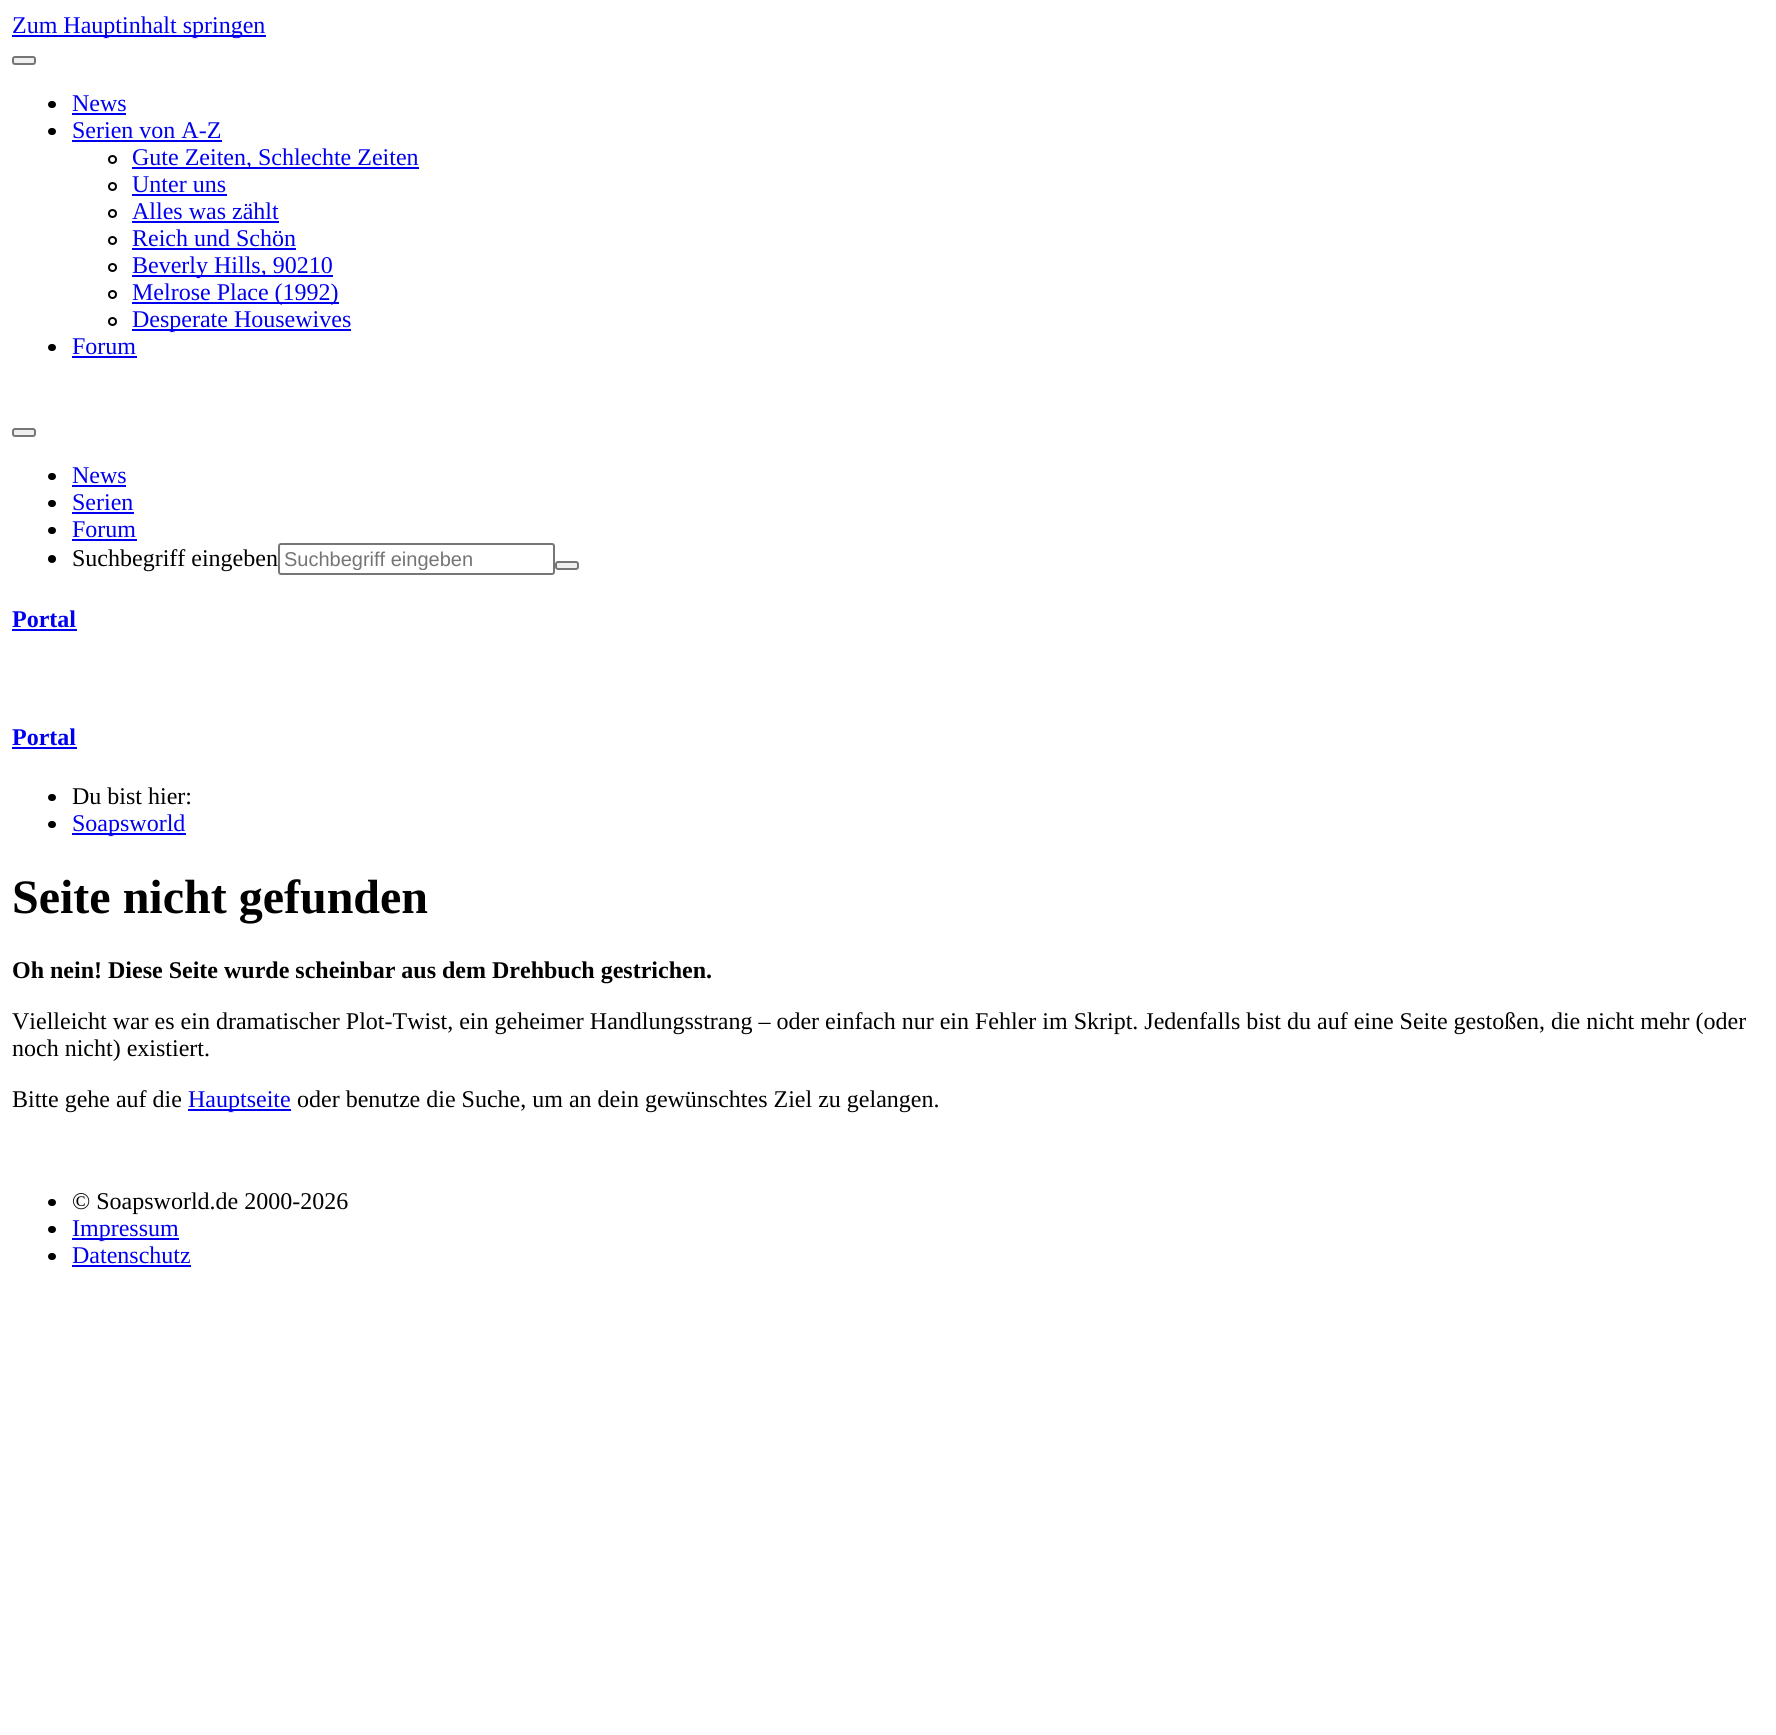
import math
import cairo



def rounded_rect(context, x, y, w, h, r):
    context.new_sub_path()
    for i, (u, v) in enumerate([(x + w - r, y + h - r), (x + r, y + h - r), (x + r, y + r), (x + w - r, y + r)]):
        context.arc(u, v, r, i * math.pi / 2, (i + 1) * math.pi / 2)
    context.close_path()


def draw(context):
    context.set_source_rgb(1, 1, 1)
    context.paint()
    context.set_source_rgb(0, 0, 238 / 255)
    context.rectangle(12, 35, 254, 2)
    context.fill()
    context.set_source_rgb(239 / 255, 239 / 255, 239 / 255)
    rounded_rect(context, 13, 57, 22, 7, 2)
    context.fill_preserve()
    context.set_source_rgb(118 / 255, 118 / 255, 118 / 255)
    context.stroke()
    context.set_source_rgb(0, 0, 0)
    rounded_rect(context, 48, 101, 8, 7, 3.5)
    context.fill()
    context.set_source_rgb(0, 0, 238 / 255)
    context.rectangle(72, 113, 54, 2)
    context.fill()
    context.set_source_rgb(0, 0, 0)
    rounded_rect(context, 48, 128, 8, 7, 3.5)
    context.fill()
    context.set_source_rgb(0, 0, 238 / 255)
    context.rectangle(72, 140, 150, 2)
    context.fill()
    context.arc(112.5, 159.5, 3.5, 0, 2 * math.pi)
    context.set_source_rgb(0, 0, 0)
    context.stroke()
    context.set_source_rgb(0, 0, 238 / 255)
    context.rectangle(132, 167, 287, 2)
    context.fill()
    context.arc(112.5, 186.5, 3.5, 0, 2 * math.pi)
    context.set_source_rgb(0, 0, 0)
    context.stroke()
    context.set_source_rgb(0, 0, 238 / 255)
    context.rectangle(132, 194, 95, 2)
    context.fill()
    context.arc(112.5, 213.5, 3.5, 0, 2 * math.pi)
    context.set_source_rgb(0, 0, 0)
    context.stroke()
    context.set_source_rgb(0, 0, 238 / 255)
    context.rectangle(132, 221, 147, 2)
    context.fill()
    context.arc(112.5, 240.5, 3.5, 0, 2 * math.pi)
    context.set_source_rgb(0, 0, 0)
    context.stroke()
    context.set_source_rgb(0, 0, 238 / 255)
    context.rectangle(132, 248, 164, 2)
    context.fill()
    context.arc(112.5, 267.5, 3.5, 0, 2 * math.pi)
    context.set_source_rgb(0, 0, 0)
    context.stroke()
    context.set_source_rgb(0, 0, 238 / 255)
    context.rectangle(132, 275, 201, 2)
    context.fill()
    context.arc(112.5, 294.5, 3.5, 0, 2 * math.pi)
    context.set_source_rgb(0, 0, 0)
    context.stroke()
    context.set_source_rgb(0, 0, 238 / 255)
    context.rectangle(132, 302, 207, 2)
    context.fill()
    context.arc(112.5, 321.5, 3.5, 0, 2 * math.pi)
    context.set_source_rgb(0, 0, 0)
    context.stroke()
    context.set_source_rgb(0, 0, 238 / 255)
    context.rectangle(132, 329, 219, 2)
    context.fill()
    context.set_source_rgb(0, 0, 0)
    rounded_rect(context, 48, 344, 8, 7, 3.5)
    context.fill()
    context.set_source_rgb(0, 0, 238 / 255)
    context.rectangle(72, 356, 65, 2)
    context.fill()
    context.set_source_rgb(239 / 255, 239 / 255, 239 / 255)
    rounded_rect(context, 13, 429, 22, 7, 2)
    context.fill_preserve()
    context.set_source_rgb(118 / 255, 118 / 255, 118 / 255)
    context.stroke()
    context.set_source_rgb(0, 0, 0)
    rounded_rect(context, 48, 473, 8, 7, 3.5)
    context.fill()
    context.set_source_rgb(0, 0, 238 / 255)
    context.rectangle(72, 485, 54, 2)
    context.fill()
    context.set_source_rgb(0, 0, 0)
    rounded_rect(context, 48, 500, 8, 7, 3.5)
    context.fill()
    context.set_source_rgb(0, 0, 238 / 255)
    context.rectangle(72, 512, 62, 2)
    context.fill()
    context.set_source_rgb(0, 0, 0)
    rounded_rect(context, 48, 527, 8, 7, 3.5)
    context.fill()
    context.set_source_rgb(0, 0, 238 / 255)
    context.rectangle(72, 539, 65, 2)
    context.fill()
    context.set_source_rgb(0, 0, 0)
    context.arc(52, 559, 4, 0, 2 * math.pi)
    context.fill()
    rounded_rect(context, 279, 544, 275, 30, 2)
    context.set_source_rgb(118 / 255, 118 / 255, 118 / 255)
    context.stroke()
    context.set_source_rgb(239 / 255, 239 / 255, 239 / 255)
    rounded_rect(context, 556, 562, 22, 7, 2)
    context.fill_preserve()
    context.set_source_rgb(118 / 255, 118 / 255, 118 / 255)
    context.stroke()
    context.set_source_rgb(0, 0, 238 / 255)
    context.rectangle(12, 629, 65, 2)
    context.fill()
    context.rectangle(12, 747, 65, 2)
    context.fill()
    context.set_source_rgb(0, 0, 0)
    rounded_rect(context, 48, 794, 8, 7, 3.5)
    context.fill()
    rounded_rect(context, 48, 821, 8, 7, 3.5)
    context.fill()
    context.set_source_rgb(0, 0, 238 / 255)
    context.rectangle(72, 833, 114, 2)
    context.fill()
    context.rectangle(188, 1109, 103, 2)
    context.fill()
    context.set_source_rgb(0, 0, 0)
    rounded_rect(context, 48, 1199, 8, 7, 3.5)
    context.fill()
    rounded_rect(context, 48, 1226, 8, 7, 3.5)
    context.fill()
    context.set_source_rgb(0, 0, 238 / 255)
    context.rectangle(72, 1238, 107, 2)
    context.fill()
    context.set_source_rgb(0, 0, 0)
    rounded_rect(context, 48, 1253, 8, 7, 3.5)
    context.fill()
    context.set_source_rgb(0, 0, 238 / 255)
    context.rectangle(72, 1265, 119, 2)
    context.fill()
    context.select_font_face("Liberation Serif")
    context.set_font_size(24)
    context.move_to(12, 33)
    context.show_text("Zum Hauptinhalt springen")
    context.move_to(72, 111)
    context.show_text("News")
    context.move_to(72, 138)
    context.show_text("Serien von A-Z")
    context.move_to(132, 165)
    context.show_text("Gute Zeiten, Schlechte Zeiten")
    context.move_to(132, 192)
    context.show_text("Unter uns")
    context.move_to(132, 219)
    context.show_text("Alles was zählt")
    context.move_to(132, 246)
    context.show_text("Reich und Schön")
    context.move_to(132, 273)
    context.show_text("Beverly Hills, 90210")
    context.move_to(132, 300)
    context.show_text("Melrose Place (1992)")
    context.move_to(132, 327)
    context.show_text("Desperate Housewives")
    context.move_to(72, 354)
    context.show_text("Forum")
    context.move_to(72, 483)
    context.show_text("News")
    context.move_to(72, 510)
    context.show_text("Serien")
    context.move_to(72, 537)
    context.show_text("Forum")
    context.set_source_rgb(0, 0, 0)
    context.move_to(72, 566)
    context.show_text("Suchbegriff eingeben")
    context.save()
    context.rectangle(284, 548, 246, 22)
    context.clip()
    context.select_font_face("Liberation Sans")
    context.set_font_size(20)
    context.set_source_rgb(117 / 255, 117 / 255, 117 / 255)
    context.move_to(284, 566)
    context.show_text("Suchbegriff eingeben")
    context.restore()
    context.select_font_face("Liberation Serif", cairo.FontSlant.NORMAL, cairo.FontWeight.BOLD)
    context.set_source_rgb(0, 0, 238 / 255)
    context.move_to(12, 627)
    context.show_text("Portal")
    context.move_to(12, 745)
    context.show_text("Portal")
    context.select_font_face("Liberation Serif")
    context.set_source_rgb(0, 0, 0)
    context.move_to(72, 804)
    context.show_text("Du bist hier:")
    context.set_source_rgb(0, 0, 238 / 255)
    context.move_to(72, 831)
    context.show_text("Soapsworld")
    context.select_font_face("Liberation Serif", cairo.FontSlant.NORMAL, cairo.FontWeight.BOLD)
    context.set_font_size(48)
    context.set_source_rgb(0, 0, 0)
    context.move_to(12, 913)
    context.show_text("Seite nicht gefunden")
    context.set_font_size(24)
    context.move_to(12, 978)
    context.show_text("Oh nein! Diese Seite wurde scheinbar aus dem Drehbuch gestrichen.")
    context.select_font_face("Liberation Serif")
    context.move_to(12, 1029)
    context.show_text("Vielleicht war es ein dramatischer Plot-Twist, ein geheimer Handlungsstrang – oder einfach nur ein Fehler im Skript. Jedenfalls bist du auf eine Seite gestoßen, die nicht mehr (oder")
    context.move_to(12, 1056)
    context.show_text("noch nicht) existiert.")
    context.move_to(12, 1107)
    context.show_text("Bitte gehe auf die")
    context.set_source_rgb(0, 0, 238 / 255)
    context.move_to(188, 1107)
    context.show_text("Hauptseite")
    context.set_source_rgb(0, 0, 0)
    context.move_to(297, 1107)
    context.show_text("oder benutze die Suche, um an dein gewünschtes Ziel zu gelangen.")
    context.move_to(72, 1209)
    context.show_text("© Soapsworld.de 2000-2026")
    context.set_source_rgb(0, 0, 238 / 255)
    context.move_to(72, 1236)
    context.show_text("Impressum")
    context.move_to(72, 1263)
    context.show_text("Datenschutz")


surface = cairo.ImageSurface(cairo.Format.RGB24, 1776, 1735)
context = cairo.Context(surface)
options = cairo.FontOptions()
options.set_hint_metrics(cairo.HintMetrics.OFF)
options.set_hint_style(cairo.HintStyle.NONE)
context.set_font_options(options)
context.set_miter_limit(4)
draw(context)
surface.write_to_png("out.png")
